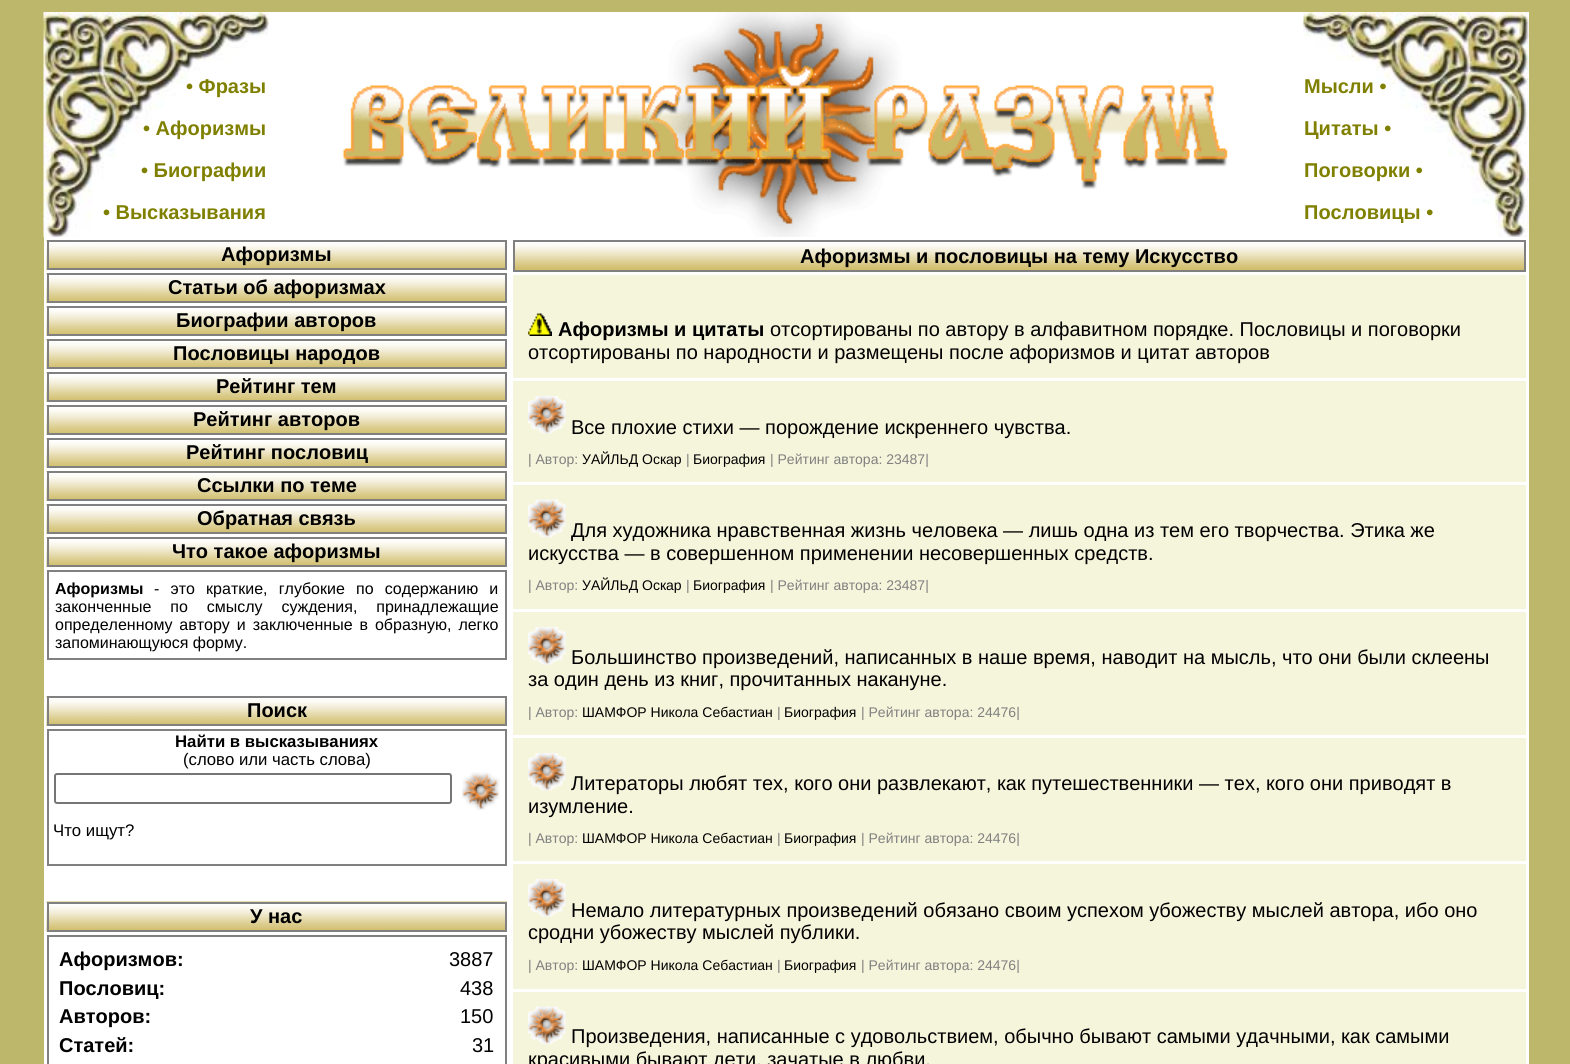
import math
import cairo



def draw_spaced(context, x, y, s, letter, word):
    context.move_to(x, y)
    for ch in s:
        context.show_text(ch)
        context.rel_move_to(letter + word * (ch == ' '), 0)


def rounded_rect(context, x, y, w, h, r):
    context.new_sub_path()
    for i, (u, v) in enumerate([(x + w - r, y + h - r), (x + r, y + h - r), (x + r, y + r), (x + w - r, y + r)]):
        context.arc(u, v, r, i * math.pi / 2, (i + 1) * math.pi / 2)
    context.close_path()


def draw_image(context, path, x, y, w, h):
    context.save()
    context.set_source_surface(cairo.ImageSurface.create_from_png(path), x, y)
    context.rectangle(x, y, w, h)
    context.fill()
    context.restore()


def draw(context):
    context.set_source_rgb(189 / 255, 183 / 255, 107 / 255)
    context.paint()
    context.set_source_rgb(1, 1, 1)
    context.rectangle(268, 12, 1261, 225)
    context.fill()
    draw_image(context, "images/1.png", 43, 12, 226, 225)
    draw_image(context, "images/2.png", 343, 12, 885, 225)
    draw_image(context, "images/3.png", 1303, 12, 226, 225)
    context.rectangle(44, 237, 1485, 827)
    context.fill()
    draw_image(context, "images/4.png", 46, 240, 459, 30)
    context.rectangle(48, 241, 458, 28)
    context.set_source_rgb(128 / 255, 128 / 255, 128 / 255)
    context.stroke()
    draw_image(context, "images/5.png", 46, 273, 459, 30)
    context.rectangle(48, 274, 458, 28)
    context.stroke()
    draw_image(context, "images/6.png", 46, 306, 459, 30)
    context.rectangle(48, 307, 458, 28)
    context.stroke()
    draw_image(context, "images/5.png", 46, 339, 459, 30)
    context.rectangle(48, 340, 458, 28)
    context.stroke()
    draw_image(context, "images/7.png", 46, 372, 459, 30)
    context.rectangle(48, 373, 458, 28)
    context.stroke()
    draw_image(context, "images/8.png", 46, 405, 459, 30)
    context.rectangle(48, 406, 458, 28)
    context.stroke()
    draw_image(context, "images/8.png", 46, 438, 459, 30)
    context.rectangle(48, 439, 458, 28)
    context.stroke()
    draw_image(context, "images/9.png", 46, 471, 459, 30)
    context.rectangle(48, 472, 458, 28)
    context.stroke()
    draw_image(context, "images/7.png", 46, 504, 459, 30)
    context.rectangle(48, 505, 458, 28)
    context.stroke()
    draw_image(context, "images/5.png", 46, 537, 459, 30)
    context.rectangle(48, 538, 458, 28)
    context.stroke()
    context.rectangle(48, 571, 458, 88)
    context.stroke()
    draw_image(context, "images/7.png", 46, 696, 459, 30)
    context.rectangle(48, 697, 458, 28)
    context.stroke()
    context.rectangle(48, 730, 458, 135)
    context.stroke()
    rounded_rect(context, 55, 774, 396, 29, 2)
    context.set_source_rgb(118 / 255, 118 / 255, 118 / 255)
    context.stroke()
    draw_image(context, "images/10.png", 462, 772, 38, 38)
    draw_image(context, "images/11.png", 46, 901, 461, 31)
    context.rectangle(48, 903, 458, 28)
    context.set_source_rgb(128 / 255, 128 / 255, 128 / 255)
    context.stroke()
    context.rectangle(48, 936, 458, 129)
    context.stroke()
    draw_image(context, "images/12.png", 515, 242, 1009, 28)
    context.rectangle(514, 241, 1011, 30)
    context.stroke()
    context.set_source_rgb(245 / 255, 245 / 255, 220 / 255)
    context.rectangle(513, 275, 1013, 103)
    context.fill()
    draw_image(context, "images/13.png", 528, 313, 24, 23)
    context.rectangle(513, 381, 1013, 101)
    context.fill()
    draw_image(context, "images/14.png", 528, 396, 38, 38)
    context.rectangle(513, 485, 1013, 124)
    context.fill()
    draw_image(context, "images/15.png", 528, 499, 38, 38)
    context.rectangle(513, 612, 1013, 123)
    context.fill()
    draw_image(context, "images/14.png", 528, 627, 38, 38)
    context.rectangle(513, 738, 1013, 123)
    context.fill()
    draw_image(context, "images/14.png", 528, 753, 38, 38)
    context.rectangle(513, 864, 1013, 125)
    context.fill()
    draw_image(context, "images/14.png", 528, 879, 38, 38)
    context.rectangle(513, 992, 1013, 72)
    context.fill()
    draw_image(context, "images/15.png", 528, 1006, 38, 38)
    context.select_font_face("Liberation Sans", cairo.FontSlant.NORMAL, cairo.FontWeight.BOLD)
    context.set_font_size(20)
    context.set_source_rgb(128 / 255, 128 / 255, 0)
    context.move_to(186, 93)
    context.show_text("• Фразы")
    context.move_to(143, 135)
    context.show_text("• Афоризмы")
    context.move_to(141, 177)
    context.show_text("• Биографии")
    context.move_to(103, 219)
    context.show_text("• Высказывания")
    context.move_to(1304, 93)
    context.show_text("Мысли •")
    context.move_to(1304, 135)
    context.show_text("Цитаты •")
    context.move_to(1304, 177)
    context.show_text("Поговорки •")
    context.move_to(1304, 219)
    context.show_text("Пословицы •")
    context.set_source_rgb(0, 0, 0)
    context.move_to(221, 261)
    context.show_text("Афоризмы")
    context.move_to(168, 294)
    context.show_text("Статьи об афоризмах")
    context.move_to(176, 327)
    context.show_text("Биографии авторов")
    context.move_to(173, 360)
    context.show_text("Пословицы народов")
    context.move_to(216, 393)
    context.show_text("Рейтинг тем")
    context.move_to(193, 426)
    context.show_text("Рейтинг авторов")
    context.move_to(186, 459)
    context.show_text("Рейтинг пословиц")
    context.move_to(197, 492)
    context.show_text("Ссылки по теме")
    context.move_to(197, 525)
    context.show_text("Обратная связь")
    context.move_to(172, 558)
    context.show_text("Что такое афоризмы")
    context.set_font_size(16)
    context.move_to(55, 594)
    context.show_text("Афоризмы")
    context.select_font_face("Liberation Sans")
    draw_spaced(context, 154, 594, "- это краткие, глубокие по содержанию и", 0, 6.75)
    draw_spaced(context, 55, 612, "законченные по смыслу суждения, принадлежащие", 0, 14.5)
    draw_spaced(context, 55, 630, "определенному автору и заключенные в образную, легко", 0, 2.5)
    context.move_to(55, 648)
    context.show_text("запоминающуюся форму.")
    context.select_font_face("Liberation Sans", cairo.FontSlant.NORMAL, cairo.FontWeight.BOLD)
    context.set_font_size(20)
    context.move_to(247, 717)
    context.show_text("Поиск")
    context.set_font_size(16.75)
    context.move_to(175, 747)
    context.show_text("Найти в высказываниях")
    context.select_font_face("Liberation Sans")
    context.move_to(183, 765)
    context.show_text("(слово или часть слова)")
    context.move_to(53, 836)
    context.show_text("Что ищут?")
    context.select_font_face("Liberation Sans", cairo.FontSlant.NORMAL, cairo.FontWeight.BOLD)
    context.set_font_size(20)
    context.move_to(250, 923)
    context.show_text("У нас")
    context.move_to(59, 966)
    context.show_text("Афоризмов:")
    context.select_font_face("Liberation Sans")
    context.move_to(449, 966)
    context.show_text("3887")
    context.select_font_face("Liberation Sans", cairo.FontSlant.NORMAL, cairo.FontWeight.BOLD)
    context.move_to(59, 995)
    context.show_text("Пословиц:")
    context.select_font_face("Liberation Sans")
    context.move_to(460, 995)
    context.show_text("438")
    context.select_font_face("Liberation Sans", cairo.FontSlant.NORMAL, cairo.FontWeight.BOLD)
    context.move_to(59, 1023)
    context.show_text("Авторов:")
    context.select_font_face("Liberation Sans")
    context.move_to(460, 1023)
    context.show_text("150")
    context.select_font_face("Liberation Sans", cairo.FontSlant.NORMAL, cairo.FontWeight.BOLD)
    context.move_to(59, 1052)
    context.show_text("Статей:")
    context.select_font_face("Liberation Sans")
    context.move_to(472, 1052)
    context.show_text("31")
    context.select_font_face("Liberation Sans", cairo.FontSlant.NORMAL, cairo.FontWeight.BOLD)
    context.move_to(800, 263)
    context.show_text("Афоризмы и пословицы на тему Искусство")
    context.move_to(558, 336)
    context.show_text("Aфоризмы и цитаты")
    context.select_font_face("Liberation Sans")
    context.move_to(770, 336)
    context.show_text("отсортированы по автору в алфавитном порядке. Пословицы и поговорки")
    context.move_to(528, 359)
    context.show_text("отсортированы по народности и размещены после афоризмов и цитат авторов")
    context.move_to(571, 434)
    context.show_text("Все плохие стихи — порождение искреннего чувства.")
    context.set_font_size(14)
    context.set_source_rgb(128 / 255, 128 / 255, 128 / 255)
    context.move_to(528, 464)
    context.show_text("| Автор:")
    context.set_source_rgb(0, 0, 0)
    context.move_to(582, 464)
    context.show_text("УАЙЛЬД Оскар")
    context.set_source_rgb(128 / 255, 128 / 255, 128 / 255)
    context.move_to(686, 464)
    context.show_text("|")
    context.set_source_rgb(0, 0, 0)
    context.move_to(693, 464)
    context.show_text("Биография")
    context.set_source_rgb(128 / 255, 128 / 255, 128 / 255)
    context.move_to(770, 464)
    context.show_text("| Рейтинг автора: 23487|")
    context.set_font_size(20)
    context.set_source_rgb(0, 0, 0)
    context.move_to(571, 537)
    context.show_text("Для художника нравственная жизнь человека — лишь одна из тем его творчества. Этика же")
    context.move_to(528, 560)
    context.show_text("искусства — в совершенном применении несовершенных средств.")
    context.set_font_size(14)
    context.set_source_rgb(128 / 255, 128 / 255, 128 / 255)
    context.move_to(528, 590)
    context.show_text("| Автор:")
    context.set_source_rgb(0, 0, 0)
    context.move_to(582, 590)
    context.show_text("УАЙЛЬД Оскар")
    context.set_source_rgb(128 / 255, 128 / 255, 128 / 255)
    context.move_to(686, 590)
    context.show_text("|")
    context.set_source_rgb(0, 0, 0)
    context.move_to(693, 590)
    context.show_text("Биография")
    context.set_source_rgb(128 / 255, 128 / 255, 128 / 255)
    context.move_to(770, 590)
    context.show_text("| Рейтинг автора: 23487|")
    context.set_font_size(20)
    context.set_source_rgb(0, 0, 0)
    context.move_to(571, 664)
    context.show_text("Большинство произведений, написанных в наше время, наводит на мысль, что они были склеены")
    context.move_to(528, 686)
    context.show_text("за один день из книг, прочитанных накануне.")
    context.set_font_size(14)
    context.set_source_rgb(128 / 255, 128 / 255, 128 / 255)
    context.move_to(528, 717)
    context.show_text("| Автор:")
    context.set_source_rgb(0, 0, 0)
    context.move_to(582, 717)
    context.show_text("ШАМФОР Никола Себастиан")
    context.set_source_rgb(128 / 255, 128 / 255, 128 / 255)
    context.move_to(777, 717)
    context.show_text("|")
    context.set_source_rgb(0, 0, 0)
    context.move_to(784, 717)
    context.show_text("Биография")
    context.set_source_rgb(128 / 255, 128 / 255, 128 / 255)
    context.move_to(861, 717)
    context.show_text("| Рейтинг автора: 24476|")
    context.set_font_size(20)
    context.set_source_rgb(0, 0, 0)
    context.move_to(571, 790)
    context.show_text("Литераторы любят тех, кого они развлекают, как путешественники — тех, кого они приводят в")
    context.move_to(528, 813)
    context.show_text("изумление.")
    context.set_font_size(14)
    context.set_source_rgb(128 / 255, 128 / 255, 128 / 255)
    context.move_to(528, 843)
    context.show_text("| Автор:")
    context.set_source_rgb(0, 0, 0)
    context.move_to(582, 843)
    context.show_text("ШАМФОР Никола Себастиан")
    context.set_source_rgb(128 / 255, 128 / 255, 128 / 255)
    context.move_to(777, 843)
    context.show_text("|")
    context.set_source_rgb(0, 0, 0)
    context.move_to(784, 843)
    context.show_text("Биография")
    context.set_source_rgb(128 / 255, 128 / 255, 128 / 255)
    context.move_to(861, 843)
    context.show_text("| Рейтинг автора: 24476|")
    context.set_font_size(20)
    context.set_source_rgb(0, 0, 0)
    context.move_to(571, 917)
    context.show_text("Немало литературных произведений обязано своим успехом убожеству мыслей автора, ибо оно")
    context.move_to(528, 939)
    context.show_text("сродни убожеству мыслей публики.")
    context.set_font_size(14)
    context.set_source_rgb(128 / 255, 128 / 255, 128 / 255)
    context.move_to(528, 970)
    context.show_text("| Автор:")
    context.set_source_rgb(0, 0, 0)
    context.move_to(582, 970)
    context.show_text("ШАМФОР Никола Себастиан")
    context.set_source_rgb(128 / 255, 128 / 255, 128 / 255)
    context.move_to(777, 970)
    context.show_text("|")
    context.set_source_rgb(0, 0, 0)
    context.move_to(784, 970)
    context.show_text("Биография")
    context.set_source_rgb(128 / 255, 128 / 255, 128 / 255)
    context.move_to(861, 970)
    context.show_text("| Рейтинг автора: 24476|")
    context.set_font_size(20)
    context.set_source_rgb(0, 0, 0)
    context.move_to(571, 1043)
    context.show_text("Произведения, написанные с удовольствием, обычно бывают самыми удачными, как самыми")
    context.move_to(528, 1066)
    context.show_text("красивыми бывают дети, зачатые в любви.")


surface = cairo.ImageSurface(cairo.Format.RGB24, 1570, 1064)
context = cairo.Context(surface)
options = cairo.FontOptions()
options.set_hint_metrics(cairo.HintMetrics.OFF)
options.set_hint_style(cairo.HintStyle.NONE)
context.set_font_options(options)
context.set_miter_limit(4)
draw(context)
surface.write_to_png("out.png")
